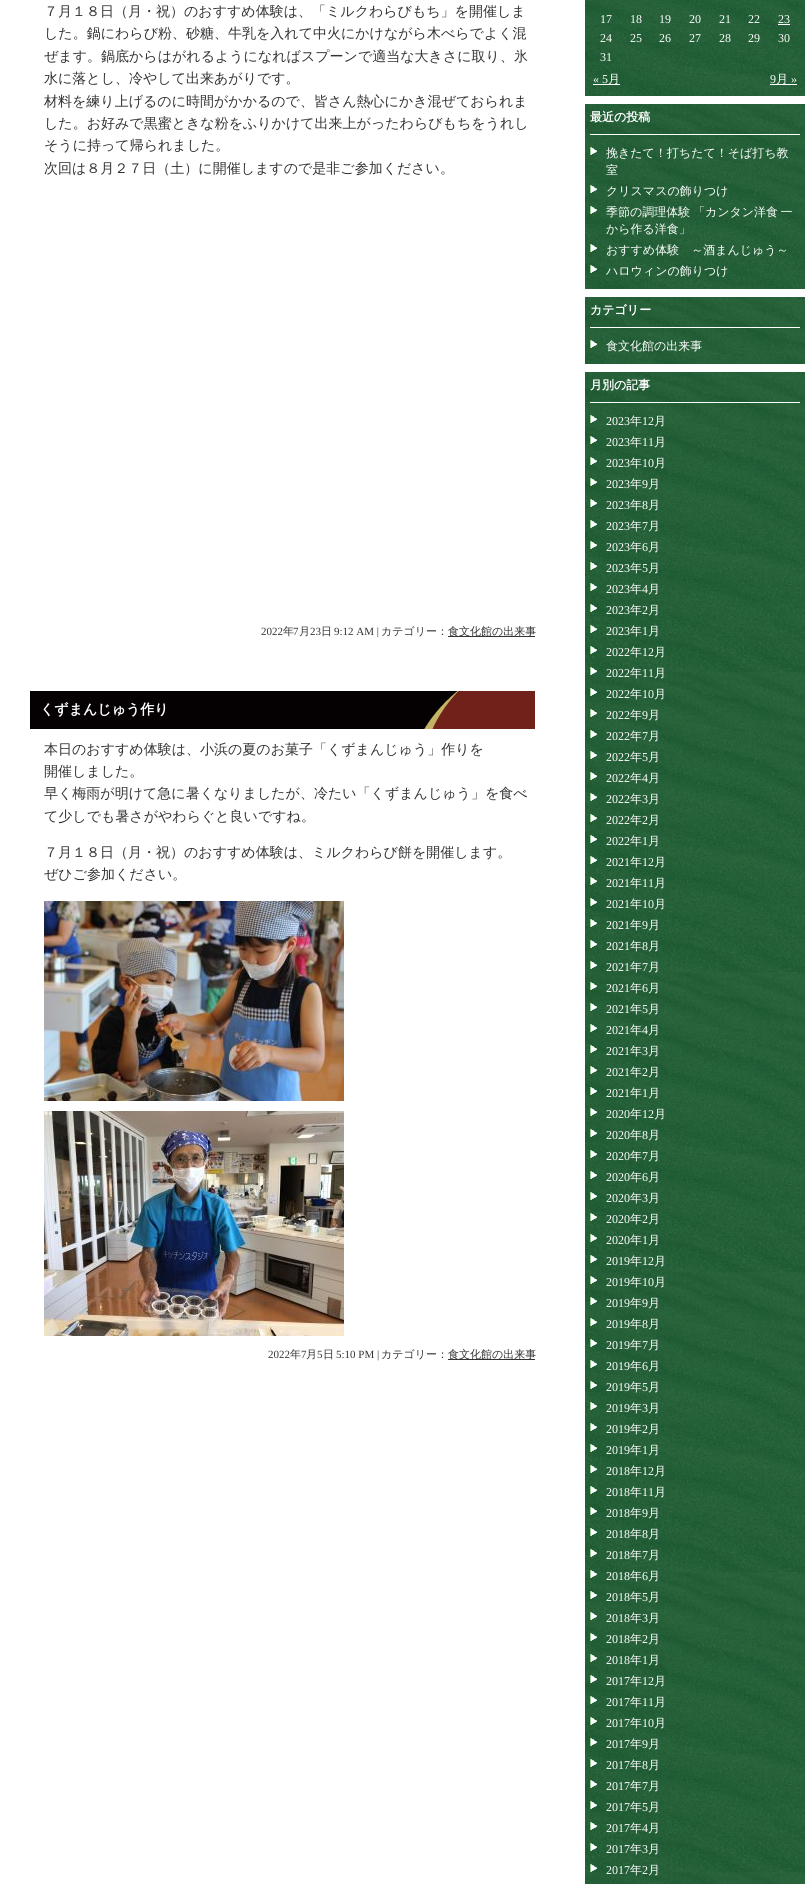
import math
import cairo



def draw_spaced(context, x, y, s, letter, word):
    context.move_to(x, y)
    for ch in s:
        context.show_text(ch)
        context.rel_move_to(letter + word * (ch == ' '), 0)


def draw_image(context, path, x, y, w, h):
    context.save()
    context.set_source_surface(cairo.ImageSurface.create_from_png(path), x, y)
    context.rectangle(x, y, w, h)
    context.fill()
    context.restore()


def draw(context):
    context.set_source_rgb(1, 1, 1)
    context.paint()
    context.set_source_rgb(51 / 255, 51 / 255, 51 / 255)
    context.rectangle(448, 636, 87, 1)
    context.fill()
    draw_image(context, "images/1.png", 30, 691, 505, 38)
    draw_image(context, "images/2.png", 44, 901, 300, 200)
    draw_image(context, "images/3.png", 44, 1111, 300, 225)
    context.rectangle(448, 1359, 87, 1)
    context.fill()
    draw_image(context, "images/4.png", 585, 0, 220, 96)
    context.set_source_rgb(1, 1, 1)
    context.rectangle(778, 24, 12, 1)
    context.fill()
    context.rectangle(593, 84, 27, 1)
    context.fill()
    context.rectangle(770, 84, 27, 1)
    context.fill()
    draw_image(context, "images/5.png", 585, 104, 220, 185)
    context.rectangle(590, 134, 210, 1)
    context.fill()
    draw_image(context, "images/6.png", 590, 147, 7, 8)
    draw_image(context, "images/7.png", 590, 185, 7, 8)
    draw_image(context, "images/8.png", 590, 206, 7, 8)
    draw_image(context, "images/9.png", 590, 244, 7, 8)
    draw_image(context, "images/10.png", 590, 265, 7, 8)
    draw_image(context, "images/11.png", 585, 297, 220, 67)
    context.rectangle(590, 327, 210, 1)
    context.fill()
    draw_image(context, "images/6.png", 590, 340, 7, 8)
    draw_image(context, "images/12.png", 585, 372, 220, 1512)
    context.rectangle(590, 402, 210, 1)
    context.fill()
    draw_image(context, "images/6.png", 590, 415, 7, 8)
    draw_image(context, "images/13.png", 590, 436, 7, 8)
    draw_image(context, "images/14.png", 590, 457, 7, 8)
    draw_image(context, "images/15.png", 590, 478, 7, 8)
    draw_image(context, "images/16.png", 590, 499, 7, 8)
    draw_image(context, "images/17.png", 590, 520, 7, 8)
    draw_image(context, "images/18.png", 590, 541, 7, 8)
    draw_image(context, "images/19.png", 590, 562, 7, 8)
    draw_image(context, "images/20.png", 590, 583, 7, 8)
    draw_image(context, "images/21.png", 590, 604, 7, 8)
    draw_image(context, "images/22.png", 590, 625, 7, 8)
    draw_image(context, "images/23.png", 590, 646, 7, 8)
    draw_image(context, "images/24.png", 590, 667, 7, 8)
    draw_image(context, "images/25.png", 590, 688, 7, 8)
    draw_image(context, "images/26.png", 590, 709, 7, 8)
    draw_image(context, "images/27.png", 590, 730, 7, 8)
    draw_image(context, "images/28.png", 590, 751, 7, 8)
    draw_image(context, "images/29.png", 590, 772, 7, 8)
    draw_image(context, "images/30.png", 590, 793, 7, 8)
    draw_image(context, "images/31.png", 590, 814, 7, 8)
    draw_image(context, "images/32.png", 590, 835, 7, 8)
    draw_image(context, "images/33.png", 590, 856, 7, 8)
    draw_image(context, "images/34.png", 590, 877, 7, 8)
    draw_image(context, "images/35.png", 590, 898, 7, 8)
    draw_image(context, "images/36.png", 590, 919, 7, 8)
    draw_image(context, "images/37.png", 590, 940, 7, 8)
    draw_image(context, "images/38.png", 590, 961, 7, 8)
    draw_image(context, "images/39.png", 590, 982, 7, 8)
    draw_image(context, "images/40.png", 590, 1003, 7, 8)
    draw_image(context, "images/41.png", 590, 1024, 7, 8)
    draw_image(context, "images/42.png", 590, 1045, 7, 8)
    draw_image(context, "images/43.png", 590, 1066, 7, 8)
    draw_image(context, "images/44.png", 590, 1087, 7, 8)
    draw_image(context, "images/45.png", 590, 1108, 7, 8)
    draw_image(context, "images/46.png", 590, 1129, 7, 8)
    draw_image(context, "images/47.png", 590, 1150, 7, 8)
    draw_image(context, "images/48.png", 590, 1171, 7, 8)
    draw_image(context, "images/49.png", 590, 1192, 7, 8)
    draw_image(context, "images/50.png", 590, 1213, 7, 8)
    draw_image(context, "images/51.png", 590, 1234, 7, 8)
    draw_image(context, "images/52.png", 590, 1255, 7, 8)
    draw_image(context, "images/53.png", 590, 1276, 7, 8)
    draw_image(context, "images/54.png", 590, 1297, 7, 8)
    draw_image(context, "images/55.png", 590, 1318, 7, 8)
    draw_image(context, "images/56.png", 590, 1339, 7, 8)
    draw_image(context, "images/57.png", 590, 1360, 7, 8)
    draw_image(context, "images/58.png", 590, 1381, 7, 8)
    draw_image(context, "images/59.png", 590, 1402, 7, 8)
    draw_image(context, "images/60.png", 590, 1423, 7, 8)
    draw_image(context, "images/61.png", 590, 1444, 7, 8)
    draw_image(context, "images/62.png", 590, 1465, 7, 8)
    draw_image(context, "images/63.png", 590, 1486, 7, 8)
    draw_image(context, "images/64.png", 590, 1507, 7, 8)
    draw_image(context, "images/65.png", 590, 1528, 7, 8)
    draw_image(context, "images/66.png", 590, 1549, 7, 8)
    draw_image(context, "images/67.png", 590, 1570, 7, 8)
    draw_image(context, "images/68.png", 590, 1591, 7, 8)
    draw_image(context, "images/69.png", 590, 1612, 7, 8)
    draw_image(context, "images/70.png", 590, 1633, 7, 8)
    draw_image(context, "images/71.png", 590, 1654, 7, 8)
    draw_image(context, "images/72.png", 590, 1675, 7, 8)
    draw_image(context, "images/73.png", 590, 1696, 7, 8)
    draw_image(context, "images/74.png", 590, 1717, 7, 8)
    draw_image(context, "images/75.png", 590, 1738, 7, 8)
    draw_image(context, "images/76.png", 590, 1759, 7, 8)
    draw_image(context, "images/77.png", 590, 1780, 7, 8)
    draw_image(context, "images/78.png", 590, 1801, 7, 8)
    draw_image(context, "images/79.png", 590, 1822, 7, 8)
    draw_image(context, "images/80.png", 590, 1843, 7, 8)
    draw_image(context, "images/81.png", 590, 1864, 7, 8)
    context.select_font_face("WenQuanYi Zen Hei Medium")
    context.set_font_size(14)
    context.set_source_rgb(51 / 255, 51 / 255, 51 / 255)
    context.move_to(44, 16)
    context.show_text("７月１８日（月・祝）のおすすめ体験は、「ミルクわらびもち」を開催しま")
    context.move_to(44, 38)
    context.show_text("した。鍋にわらび粉、砂糖、牛乳を入れて中火にかけながら木べらでよく混")
    context.move_to(44, 61)
    context.show_text("ぜます。鍋底からはがれるようになればスプーンで適当な大きさに取り、氷")
    context.move_to(44, 83)
    context.show_text("水に落とし、冷やして出来あがりです。")
    context.move_to(44, 106)
    context.show_text("材料を練り上げるのに時間がかかるので、皆さん熱心にかき混ぜておられま")
    context.move_to(44, 128)
    context.show_text("した。お好みで黒蜜ときな粉をふりかけて出来上がったわらびもちをうれし")
    context.move_to(44, 150)
    context.show_text("そうに持って帰られました。")
    context.move_to(44, 173)
    context.show_text("次回は８月２７日（土）に開催しますので是非ご参加ください。")
    context.select_font_face("Liberation Serif")
    context.set_font_size(11)
    context.move_to(261, 635)
    context.show_text("2022")
    context.select_font_face("WenQuanYi Zen Hei Medium")
    context.move_to(283, 635)
    context.show_text("年")
    context.select_font_face("Liberation Serif")
    context.move_to(293, 635)
    context.show_text("7")
    context.select_font_face("WenQuanYi Zen Hei Medium")
    context.move_to(299, 635)
    context.show_text("月")
    context.select_font_face("Liberation Serif")
    context.move_to(310, 635)
    context.show_text("23")
    context.select_font_face("WenQuanYi Zen Hei Medium")
    context.move_to(321, 635)
    context.show_text("日")
    context.select_font_face("Liberation Serif")
    context.move_to(334, 635)
    context.show_text("9:12 AM |")
    context.select_font_face("WenQuanYi Zen Hei Medium")
    context.move_to(381, 635)
    context.show_text("カテゴリー：")
    context.move_to(448, 635)
    context.show_text("食文化館の出来事")
    context.select_font_face("WenQuanYi Zen Hei", cairo.FontSlant.NORMAL, cairo.FontWeight.BOLD)
    context.set_font_size(14)
    context.set_source_rgb(1, 1, 1)
    context.move_to(40, 714)
    context.show_text("くずまんじゅう作り")
    context.select_font_face("WenQuanYi Zen Hei Medium")
    context.set_source_rgb(51 / 255, 51 / 255, 51 / 255)
    context.move_to(44, 754)
    context.show_text("本日のおすすめ体験は、小浜の夏のお菓子「くずまんじゅう」作りを")
    context.move_to(44, 776)
    context.show_text("開催しました。")
    context.move_to(44, 798)
    context.show_text("早く梅雨が明けて急に暑くなりましたが、冷たい「くずまんじゅう」を食べ")
    context.move_to(44, 821)
    context.show_text("て少しでも暑さがやわらぐと良いですね。")
    context.move_to(44, 857)
    context.show_text("７月１８日（月・祝）のおすすめ体験は、ミルクわらび餅を開催します。")
    context.move_to(44, 879)
    context.show_text("ぜひご参加ください。")
    context.select_font_face("Liberation Serif")
    context.set_font_size(11)
    context.move_to(268, 1358)
    context.show_text("2022")
    context.select_font_face("WenQuanYi Zen Hei Medium")
    context.move_to(290, 1358)
    context.show_text("年")
    context.select_font_face("Liberation Serif")
    context.move_to(301, 1358)
    context.show_text("7")
    context.select_font_face("WenQuanYi Zen Hei Medium")
    context.move_to(306, 1358)
    context.show_text("月")
    context.select_font_face("Liberation Serif")
    context.move_to(317, 1358)
    context.show_text("5")
    context.select_font_face("WenQuanYi Zen Hei Medium")
    context.move_to(323, 1358)
    context.show_text("日")
    context.select_font_face("Liberation Serif")
    context.move_to(336, 1358)
    context.show_text("5:10 PM |")
    context.select_font_face("WenQuanYi Zen Hei Medium")
    context.move_to(381, 1358)
    context.show_text("カテゴリー：")
    context.move_to(448, 1358)
    context.show_text("食文化館の出来事")
    context.select_font_face("Liberation Serif")
    context.set_font_size(12)
    context.set_source_rgb(1, 1, 1)
    context.move_to(600, 23)
    context.show_text("17")
    context.move_to(630, 23)
    context.show_text("18")
    context.move_to(659, 23)
    context.show_text("19")
    context.move_to(689, 23)
    context.show_text("20")
    context.move_to(719, 23)
    context.show_text("21")
    context.move_to(748, 23)
    context.show_text("22")
    context.move_to(778, 23)
    context.show_text("23")
    context.move_to(600, 42)
    context.show_text("24")
    context.move_to(630, 42)
    context.show_text("25")
    context.move_to(659, 42)
    context.show_text("26")
    context.move_to(689, 42)
    context.show_text("27")
    context.move_to(719, 42)
    context.show_text("28")
    context.move_to(748, 42)
    context.show_text("29")
    context.move_to(778, 42)
    context.show_text("30")
    context.move_to(600, 61)
    context.show_text("31")
    context.move_to(593, 83)
    context.show_text("« 5")
    context.select_font_face("WenQuanYi Zen Hei Medium")
    context.move_to(608, 83)
    context.show_text("月")
    context.select_font_face("Liberation Serif")
    context.move_to(770, 83)
    context.show_text("9")
    context.select_font_face("WenQuanYi Zen Hei Medium")
    context.move_to(776, 83)
    context.show_text("月")
    context.select_font_face("Liberation Serif")
    context.move_to(791, 83)
    context.show_text("»")
    context.select_font_face("WenQuanYi Zen Hei", cairo.FontSlant.NORMAL, cairo.FontWeight.BOLD)
    context.move_to(590, 121)
    context.show_text("最近の投稿")
    context.select_font_face("WenQuanYi Zen Hei Medium")
    context.move_to(606, 157)
    context.show_text("挽きたて！打ちたて！そば打ち教")
    context.move_to(606, 174)
    context.show_text("室")
    context.move_to(606, 195)
    context.show_text("クリスマスの飾りつけ")
    draw_spaced(context, 606, 216, "季節の調理体験 「カンタン洋食 一", 0, -1)
    context.move_to(606, 233)
    context.show_text("から作る洋食」")
    context.move_to(606, 254)
    context.show_text("おすすめ体験　～酒まんじゅう～")
    context.move_to(606, 275)
    context.show_text("ハロウィンの飾りつけ")
    context.select_font_face("WenQuanYi Zen Hei", cairo.FontSlant.NORMAL, cairo.FontWeight.BOLD)
    context.move_to(590, 314)
    context.show_text("カテゴリー")
    context.select_font_face("WenQuanYi Zen Hei Medium")
    context.move_to(606, 350)
    context.show_text("食文化館の出来事")
    context.select_font_face("WenQuanYi Zen Hei", cairo.FontSlant.NORMAL, cairo.FontWeight.BOLD)
    context.move_to(590, 389)
    context.show_text("月別の記事")
    context.select_font_face("Liberation Serif")
    context.move_to(606, 425)
    context.show_text("2023")
    context.select_font_face("WenQuanYi Zen Hei Medium")
    context.move_to(630, 425)
    context.show_text("年")
    context.select_font_face("Liberation Serif")
    context.move_to(642, 425)
    context.show_text("12")
    context.select_font_face("WenQuanYi Zen Hei Medium")
    context.move_to(654, 425)
    context.show_text("月")
    context.select_font_face("Liberation Serif")
    context.move_to(606, 446)
    context.show_text("2023")
    context.select_font_face("WenQuanYi Zen Hei Medium")
    context.move_to(630, 446)
    context.show_text("年")
    context.select_font_face("Liberation Serif")
    context.move_to(642, 446)
    context.show_text("11")
    context.select_font_face("WenQuanYi Zen Hei Medium")
    context.move_to(654, 446)
    context.show_text("月")
    context.select_font_face("Liberation Serif")
    context.move_to(606, 467)
    context.show_text("2023")
    context.select_font_face("WenQuanYi Zen Hei Medium")
    context.move_to(630, 467)
    context.show_text("年")
    context.select_font_face("Liberation Serif")
    context.move_to(642, 467)
    context.show_text("10")
    context.select_font_face("WenQuanYi Zen Hei Medium")
    context.move_to(654, 467)
    context.show_text("月")
    context.select_font_face("Liberation Serif")
    context.move_to(606, 488)
    context.show_text("2023")
    context.select_font_face("WenQuanYi Zen Hei Medium")
    context.move_to(630, 488)
    context.show_text("年")
    context.select_font_face("Liberation Serif")
    context.move_to(642, 488)
    context.show_text("9")
    context.select_font_face("WenQuanYi Zen Hei Medium")
    context.move_to(648, 488)
    context.show_text("月")
    context.select_font_face("Liberation Serif")
    context.move_to(606, 509)
    context.show_text("2023")
    context.select_font_face("WenQuanYi Zen Hei Medium")
    context.move_to(630, 509)
    context.show_text("年")
    context.select_font_face("Liberation Serif")
    context.move_to(642, 509)
    context.show_text("8")
    context.select_font_face("WenQuanYi Zen Hei Medium")
    context.move_to(648, 509)
    context.show_text("月")
    context.select_font_face("Liberation Serif")
    context.move_to(606, 530)
    context.show_text("2023")
    context.select_font_face("WenQuanYi Zen Hei Medium")
    context.move_to(630, 530)
    context.show_text("年")
    context.select_font_face("Liberation Serif")
    context.move_to(642, 530)
    context.show_text("7")
    context.select_font_face("WenQuanYi Zen Hei Medium")
    context.move_to(648, 530)
    context.show_text("月")
    context.select_font_face("Liberation Serif")
    context.move_to(606, 551)
    context.show_text("2023")
    context.select_font_face("WenQuanYi Zen Hei Medium")
    context.move_to(630, 551)
    context.show_text("年")
    context.select_font_face("Liberation Serif")
    context.move_to(642, 551)
    context.show_text("6")
    context.select_font_face("WenQuanYi Zen Hei Medium")
    context.move_to(648, 551)
    context.show_text("月")
    context.select_font_face("Liberation Serif")
    context.move_to(606, 572)
    context.show_text("2023")
    context.select_font_face("WenQuanYi Zen Hei Medium")
    context.move_to(630, 572)
    context.show_text("年")
    context.select_font_face("Liberation Serif")
    context.move_to(642, 572)
    context.show_text("5")
    context.select_font_face("WenQuanYi Zen Hei Medium")
    context.move_to(648, 572)
    context.show_text("月")
    context.select_font_face("Liberation Serif")
    context.move_to(606, 593)
    context.show_text("2023")
    context.select_font_face("WenQuanYi Zen Hei Medium")
    context.move_to(630, 593)
    context.show_text("年")
    context.select_font_face("Liberation Serif")
    context.move_to(642, 593)
    context.show_text("4")
    context.select_font_face("WenQuanYi Zen Hei Medium")
    context.move_to(648, 593)
    context.show_text("月")
    context.select_font_face("Liberation Serif")
    context.move_to(606, 614)
    context.show_text("2023")
    context.select_font_face("WenQuanYi Zen Hei Medium")
    context.move_to(630, 614)
    context.show_text("年")
    context.select_font_face("Liberation Serif")
    context.move_to(642, 614)
    context.show_text("2")
    context.select_font_face("WenQuanYi Zen Hei Medium")
    context.move_to(648, 614)
    context.show_text("月")
    context.select_font_face("Liberation Serif")
    context.move_to(606, 635)
    context.show_text("2023")
    context.select_font_face("WenQuanYi Zen Hei Medium")
    context.move_to(630, 635)
    context.show_text("年")
    context.select_font_face("Liberation Serif")
    context.move_to(642, 635)
    context.show_text("1")
    context.select_font_face("WenQuanYi Zen Hei Medium")
    context.move_to(648, 635)
    context.show_text("月")
    context.select_font_face("Liberation Serif")
    context.move_to(606, 656)
    context.show_text("2022")
    context.select_font_face("WenQuanYi Zen Hei Medium")
    context.move_to(630, 656)
    context.show_text("年")
    context.select_font_face("Liberation Serif")
    context.move_to(642, 656)
    context.show_text("12")
    context.select_font_face("WenQuanYi Zen Hei Medium")
    context.move_to(654, 656)
    context.show_text("月")
    context.select_font_face("Liberation Serif")
    context.move_to(606, 677)
    context.show_text("2022")
    context.select_font_face("WenQuanYi Zen Hei Medium")
    context.move_to(630, 677)
    context.show_text("年")
    context.select_font_face("Liberation Serif")
    context.move_to(642, 677)
    context.show_text("11")
    context.select_font_face("WenQuanYi Zen Hei Medium")
    context.move_to(654, 677)
    context.show_text("月")
    context.select_font_face("Liberation Serif")
    context.move_to(606, 698)
    context.show_text("2022")
    context.select_font_face("WenQuanYi Zen Hei Medium")
    context.move_to(630, 698)
    context.show_text("年")
    context.select_font_face("Liberation Serif")
    context.move_to(642, 698)
    context.show_text("10")
    context.select_font_face("WenQuanYi Zen Hei Medium")
    context.move_to(654, 698)
    context.show_text("月")
    context.select_font_face("Liberation Serif")
    context.move_to(606, 719)
    context.show_text("2022")
    context.select_font_face("WenQuanYi Zen Hei Medium")
    context.move_to(630, 719)
    context.show_text("年")
    context.select_font_face("Liberation Serif")
    context.move_to(642, 719)
    context.show_text("9")
    context.select_font_face("WenQuanYi Zen Hei Medium")
    context.move_to(648, 719)
    context.show_text("月")
    context.select_font_face("Liberation Serif")
    context.move_to(606, 740)
    context.show_text("2022")
    context.select_font_face("WenQuanYi Zen Hei Medium")
    context.move_to(630, 740)
    context.show_text("年")
    context.select_font_face("Liberation Serif")
    context.move_to(642, 740)
    context.show_text("7")
    context.select_font_face("WenQuanYi Zen Hei Medium")
    context.move_to(648, 740)
    context.show_text("月")
    context.select_font_face("Liberation Serif")
    context.move_to(606, 761)
    context.show_text("2022")
    context.select_font_face("WenQuanYi Zen Hei Medium")
    context.move_to(630, 761)
    context.show_text("年")
    context.select_font_face("Liberation Serif")
    context.move_to(642, 761)
    context.show_text("5")
    context.select_font_face("WenQuanYi Zen Hei Medium")
    context.move_to(648, 761)
    context.show_text("月")
    context.select_font_face("Liberation Serif")
    context.move_to(606, 782)
    context.show_text("2022")
    context.select_font_face("WenQuanYi Zen Hei Medium")
    context.move_to(630, 782)
    context.show_text("年")
    context.select_font_face("Liberation Serif")
    context.move_to(642, 782)
    context.show_text("4")
    context.select_font_face("WenQuanYi Zen Hei Medium")
    context.move_to(648, 782)
    context.show_text("月")
    context.select_font_face("Liberation Serif")
    context.move_to(606, 803)
    context.show_text("2022")
    context.select_font_face("WenQuanYi Zen Hei Medium")
    context.move_to(630, 803)
    context.show_text("年")
    context.select_font_face("Liberation Serif")
    context.move_to(642, 803)
    context.show_text("3")
    context.select_font_face("WenQuanYi Zen Hei Medium")
    context.move_to(648, 803)
    context.show_text("月")
    context.select_font_face("Liberation Serif")
    context.move_to(606, 824)
    context.show_text("2022")
    context.select_font_face("WenQuanYi Zen Hei Medium")
    context.move_to(630, 824)
    context.show_text("年")
    context.select_font_face("Liberation Serif")
    context.move_to(642, 824)
    context.show_text("2")
    context.select_font_face("WenQuanYi Zen Hei Medium")
    context.move_to(648, 824)
    context.show_text("月")
    context.select_font_face("Liberation Serif")
    context.move_to(606, 845)
    context.show_text("2022")
    context.select_font_face("WenQuanYi Zen Hei Medium")
    context.move_to(630, 845)
    context.show_text("年")
    context.select_font_face("Liberation Serif")
    context.move_to(642, 845)
    context.show_text("1")
    context.select_font_face("WenQuanYi Zen Hei Medium")
    context.move_to(648, 845)
    context.show_text("月")
    context.select_font_face("Liberation Serif")
    context.move_to(606, 866)
    context.show_text("2021")
    context.select_font_face("WenQuanYi Zen Hei Medium")
    context.move_to(630, 866)
    context.show_text("年")
    context.select_font_face("Liberation Serif")
    context.move_to(642, 866)
    context.show_text("12")
    context.select_font_face("WenQuanYi Zen Hei Medium")
    context.move_to(654, 866)
    context.show_text("月")
    context.select_font_face("Liberation Serif")
    context.move_to(606, 887)
    context.show_text("2021")
    context.select_font_face("WenQuanYi Zen Hei Medium")
    context.move_to(630, 887)
    context.show_text("年")
    context.select_font_face("Liberation Serif")
    context.move_to(642, 887)
    context.show_text("11")
    context.select_font_face("WenQuanYi Zen Hei Medium")
    context.move_to(654, 887)
    context.show_text("月")
    context.select_font_face("Liberation Serif")
    context.move_to(606, 908)
    context.show_text("2021")
    context.select_font_face("WenQuanYi Zen Hei Medium")
    context.move_to(630, 908)
    context.show_text("年")
    context.select_font_face("Liberation Serif")
    context.move_to(642, 908)
    context.show_text("10")
    context.select_font_face("WenQuanYi Zen Hei Medium")
    context.move_to(654, 908)
    context.show_text("月")
    context.select_font_face("Liberation Serif")
    context.move_to(606, 929)
    context.show_text("2021")
    context.select_font_face("WenQuanYi Zen Hei Medium")
    context.move_to(630, 929)
    context.show_text("年")
    context.select_font_face("Liberation Serif")
    context.move_to(642, 929)
    context.show_text("9")
    context.select_font_face("WenQuanYi Zen Hei Medium")
    context.move_to(648, 929)
    context.show_text("月")
    context.select_font_face("Liberation Serif")
    context.move_to(606, 950)
    context.show_text("2021")
    context.select_font_face("WenQuanYi Zen Hei Medium")
    context.move_to(630, 950)
    context.show_text("年")
    context.select_font_face("Liberation Serif")
    context.move_to(642, 950)
    context.show_text("8")
    context.select_font_face("WenQuanYi Zen Hei Medium")
    context.move_to(648, 950)
    context.show_text("月")
    context.select_font_face("Liberation Serif")
    context.move_to(606, 971)
    context.show_text("2021")
    context.select_font_face("WenQuanYi Zen Hei Medium")
    context.move_to(630, 971)
    context.show_text("年")
    context.select_font_face("Liberation Serif")
    context.move_to(642, 971)
    context.show_text("7")
    context.select_font_face("WenQuanYi Zen Hei Medium")
    context.move_to(648, 971)
    context.show_text("月")
    context.select_font_face("Liberation Serif")
    context.move_to(606, 992)
    context.show_text("2021")
    context.select_font_face("WenQuanYi Zen Hei Medium")
    context.move_to(630, 992)
    context.show_text("年")
    context.select_font_face("Liberation Serif")
    context.move_to(642, 992)
    context.show_text("6")
    context.select_font_face("WenQuanYi Zen Hei Medium")
    context.move_to(648, 992)
    context.show_text("月")
    context.select_font_face("Liberation Serif")
    context.move_to(606, 1013)
    context.show_text("2021")
    context.select_font_face("WenQuanYi Zen Hei Medium")
    context.move_to(630, 1013)
    context.show_text("年")
    context.select_font_face("Liberation Serif")
    context.move_to(642, 1013)
    context.show_text("5")
    context.select_font_face("WenQuanYi Zen Hei Medium")
    context.move_to(648, 1013)
    context.show_text("月")
    context.select_font_face("Liberation Serif")
    context.move_to(606, 1034)
    context.show_text("2021")
    context.select_font_face("WenQuanYi Zen Hei Medium")
    context.move_to(630, 1034)
    context.show_text("年")
    context.select_font_face("Liberation Serif")
    context.move_to(642, 1034)
    context.show_text("4")
    context.select_font_face("WenQuanYi Zen Hei Medium")
    context.move_to(648, 1034)
    context.show_text("月")
    context.select_font_face("Liberation Serif")
    context.move_to(606, 1055)
    context.show_text("2021")
    context.select_font_face("WenQuanYi Zen Hei Medium")
    context.move_to(630, 1055)
    context.show_text("年")
    context.select_font_face("Liberation Serif")
    context.move_to(642, 1055)
    context.show_text("3")
    context.select_font_face("WenQuanYi Zen Hei Medium")
    context.move_to(648, 1055)
    context.show_text("月")
    context.select_font_face("Liberation Serif")
    context.move_to(606, 1076)
    context.show_text("2021")
    context.select_font_face("WenQuanYi Zen Hei Medium")
    context.move_to(630, 1076)
    context.show_text("年")
    context.select_font_face("Liberation Serif")
    context.move_to(642, 1076)
    context.show_text("2")
    context.select_font_face("WenQuanYi Zen Hei Medium")
    context.move_to(648, 1076)
    context.show_text("月")
    context.select_font_face("Liberation Serif")
    context.move_to(606, 1097)
    context.show_text("2021")
    context.select_font_face("WenQuanYi Zen Hei Medium")
    context.move_to(630, 1097)
    context.show_text("年")
    context.select_font_face("Liberation Serif")
    context.move_to(642, 1097)
    context.show_text("1")
    context.select_font_face("WenQuanYi Zen Hei Medium")
    context.move_to(648, 1097)
    context.show_text("月")
    context.select_font_face("Liberation Serif")
    context.move_to(606, 1118)
    context.show_text("2020")
    context.select_font_face("WenQuanYi Zen Hei Medium")
    context.move_to(630, 1118)
    context.show_text("年")
    context.select_font_face("Liberation Serif")
    context.move_to(642, 1118)
    context.show_text("12")
    context.select_font_face("WenQuanYi Zen Hei Medium")
    context.move_to(654, 1118)
    context.show_text("月")
    context.select_font_face("Liberation Serif")
    context.move_to(606, 1139)
    context.show_text("2020")
    context.select_font_face("WenQuanYi Zen Hei Medium")
    context.move_to(630, 1139)
    context.show_text("年")
    context.select_font_face("Liberation Serif")
    context.move_to(642, 1139)
    context.show_text("8")
    context.select_font_face("WenQuanYi Zen Hei Medium")
    context.move_to(648, 1139)
    context.show_text("月")
    context.select_font_face("Liberation Serif")
    context.move_to(606, 1160)
    context.show_text("2020")
    context.select_font_face("WenQuanYi Zen Hei Medium")
    context.move_to(630, 1160)
    context.show_text("年")
    context.select_font_face("Liberation Serif")
    context.move_to(642, 1160)
    context.show_text("7")
    context.select_font_face("WenQuanYi Zen Hei Medium")
    context.move_to(648, 1160)
    context.show_text("月")
    context.select_font_face("Liberation Serif")
    context.move_to(606, 1181)
    context.show_text("2020")
    context.select_font_face("WenQuanYi Zen Hei Medium")
    context.move_to(630, 1181)
    context.show_text("年")
    context.select_font_face("Liberation Serif")
    context.move_to(642, 1181)
    context.show_text("6")
    context.select_font_face("WenQuanYi Zen Hei Medium")
    context.move_to(648, 1181)
    context.show_text("月")
    context.select_font_face("Liberation Serif")
    context.move_to(606, 1202)
    context.show_text("2020")
    context.select_font_face("WenQuanYi Zen Hei Medium")
    context.move_to(630, 1202)
    context.show_text("年")
    context.select_font_face("Liberation Serif")
    context.move_to(642, 1202)
    context.show_text("3")
    context.select_font_face("WenQuanYi Zen Hei Medium")
    context.move_to(648, 1202)
    context.show_text("月")
    context.select_font_face("Liberation Serif")
    context.move_to(606, 1223)
    context.show_text("2020")
    context.select_font_face("WenQuanYi Zen Hei Medium")
    context.move_to(630, 1223)
    context.show_text("年")
    context.select_font_face("Liberation Serif")
    context.move_to(642, 1223)
    context.show_text("2")
    context.select_font_face("WenQuanYi Zen Hei Medium")
    context.move_to(648, 1223)
    context.show_text("月")
    context.select_font_face("Liberation Serif")
    context.move_to(606, 1244)
    context.show_text("2020")
    context.select_font_face("WenQuanYi Zen Hei Medium")
    context.move_to(630, 1244)
    context.show_text("年")
    context.select_font_face("Liberation Serif")
    context.move_to(642, 1244)
    context.show_text("1")
    context.select_font_face("WenQuanYi Zen Hei Medium")
    context.move_to(648, 1244)
    context.show_text("月")
    context.select_font_face("Liberation Serif")
    context.move_to(606, 1265)
    context.show_text("2019")
    context.select_font_face("WenQuanYi Zen Hei Medium")
    context.move_to(630, 1265)
    context.show_text("年")
    context.select_font_face("Liberation Serif")
    context.move_to(642, 1265)
    context.show_text("12")
    context.select_font_face("WenQuanYi Zen Hei Medium")
    context.move_to(654, 1265)
    context.show_text("月")
    context.select_font_face("Liberation Serif")
    context.move_to(606, 1286)
    context.show_text("2019")
    context.select_font_face("WenQuanYi Zen Hei Medium")
    context.move_to(630, 1286)
    context.show_text("年")
    context.select_font_face("Liberation Serif")
    context.move_to(642, 1286)
    context.show_text("10")
    context.select_font_face("WenQuanYi Zen Hei Medium")
    context.move_to(654, 1286)
    context.show_text("月")
    context.select_font_face("Liberation Serif")
    context.move_to(606, 1307)
    context.show_text("2019")
    context.select_font_face("WenQuanYi Zen Hei Medium")
    context.move_to(630, 1307)
    context.show_text("年")
    context.select_font_face("Liberation Serif")
    context.move_to(642, 1307)
    context.show_text("9")
    context.select_font_face("WenQuanYi Zen Hei Medium")
    context.move_to(648, 1307)
    context.show_text("月")
    context.select_font_face("Liberation Serif")
    context.move_to(606, 1328)
    context.show_text("2019")
    context.select_font_face("WenQuanYi Zen Hei Medium")
    context.move_to(630, 1328)
    context.show_text("年")
    context.select_font_face("Liberation Serif")
    context.move_to(642, 1328)
    context.show_text("8")
    context.select_font_face("WenQuanYi Zen Hei Medium")
    context.move_to(648, 1328)
    context.show_text("月")
    context.select_font_face("Liberation Serif")
    context.move_to(606, 1349)
    context.show_text("2019")
    context.select_font_face("WenQuanYi Zen Hei Medium")
    context.move_to(630, 1349)
    context.show_text("年")
    context.select_font_face("Liberation Serif")
    context.move_to(642, 1349)
    context.show_text("7")
    context.select_font_face("WenQuanYi Zen Hei Medium")
    context.move_to(648, 1349)
    context.show_text("月")
    context.select_font_face("Liberation Serif")
    context.move_to(606, 1370)
    context.show_text("2019")
    context.select_font_face("WenQuanYi Zen Hei Medium")
    context.move_to(630, 1370)
    context.show_text("年")
    context.select_font_face("Liberation Serif")
    context.move_to(642, 1370)
    context.show_text("6")
    context.select_font_face("WenQuanYi Zen Hei Medium")
    context.move_to(648, 1370)
    context.show_text("月")
    context.select_font_face("Liberation Serif")
    context.move_to(606, 1391)
    context.show_text("2019")
    context.select_font_face("WenQuanYi Zen Hei Medium")
    context.move_to(630, 1391)
    context.show_text("年")
    context.select_font_face("Liberation Serif")
    context.move_to(642, 1391)
    context.show_text("5")
    context.select_font_face("WenQuanYi Zen Hei Medium")
    context.move_to(648, 1391)
    context.show_text("月")
    context.select_font_face("Liberation Serif")
    context.move_to(606, 1412)
    context.show_text("2019")
    context.select_font_face("WenQuanYi Zen Hei Medium")
    context.move_to(630, 1412)
    context.show_text("年")
    context.select_font_face("Liberation Serif")
    context.move_to(642, 1412)
    context.show_text("3")
    context.select_font_face("WenQuanYi Zen Hei Medium")
    context.move_to(648, 1412)
    context.show_text("月")
    context.select_font_face("Liberation Serif")
    context.move_to(606, 1433)
    context.show_text("2019")
    context.select_font_face("WenQuanYi Zen Hei Medium")
    context.move_to(630, 1433)
    context.show_text("年")
    context.select_font_face("Liberation Serif")
    context.move_to(642, 1433)
    context.show_text("2")
    context.select_font_face("WenQuanYi Zen Hei Medium")
    context.move_to(648, 1433)
    context.show_text("月")
    context.select_font_face("Liberation Serif")
    context.move_to(606, 1454)
    context.show_text("2019")
    context.select_font_face("WenQuanYi Zen Hei Medium")
    context.move_to(630, 1454)
    context.show_text("年")
    context.select_font_face("Liberation Serif")
    context.move_to(642, 1454)
    context.show_text("1")
    context.select_font_face("WenQuanYi Zen Hei Medium")
    context.move_to(648, 1454)
    context.show_text("月")
    context.select_font_face("Liberation Serif")
    context.move_to(606, 1475)
    context.show_text("2018")
    context.select_font_face("WenQuanYi Zen Hei Medium")
    context.move_to(630, 1475)
    context.show_text("年")
    context.select_font_face("Liberation Serif")
    context.move_to(642, 1475)
    context.show_text("12")
    context.select_font_face("WenQuanYi Zen Hei Medium")
    context.move_to(654, 1475)
    context.show_text("月")
    context.select_font_face("Liberation Serif")
    context.move_to(606, 1496)
    context.show_text("2018")
    context.select_font_face("WenQuanYi Zen Hei Medium")
    context.move_to(630, 1496)
    context.show_text("年")
    context.select_font_face("Liberation Serif")
    context.move_to(642, 1496)
    context.show_text("11")
    context.select_font_face("WenQuanYi Zen Hei Medium")
    context.move_to(654, 1496)
    context.show_text("月")
    context.select_font_face("Liberation Serif")
    context.move_to(606, 1517)
    context.show_text("2018")
    context.select_font_face("WenQuanYi Zen Hei Medium")
    context.move_to(630, 1517)
    context.show_text("年")
    context.select_font_face("Liberation Serif")
    context.move_to(642, 1517)
    context.show_text("9")
    context.select_font_face("WenQuanYi Zen Hei Medium")
    context.move_to(648, 1517)
    context.show_text("月")
    context.select_font_face("Liberation Serif")
    context.move_to(606, 1538)
    context.show_text("2018")
    context.select_font_face("WenQuanYi Zen Hei Medium")
    context.move_to(630, 1538)
    context.show_text("年")
    context.select_font_face("Liberation Serif")
    context.move_to(642, 1538)
    context.show_text("8")
    context.select_font_face("WenQuanYi Zen Hei Medium")
    context.move_to(648, 1538)
    context.show_text("月")
    context.select_font_face("Liberation Serif")
    context.move_to(606, 1559)
    context.show_text("2018")
    context.select_font_face("WenQuanYi Zen Hei Medium")
    context.move_to(630, 1559)
    context.show_text("年")
    context.select_font_face("Liberation Serif")
    context.move_to(642, 1559)
    context.show_text("7")
    context.select_font_face("WenQuanYi Zen Hei Medium")
    context.move_to(648, 1559)
    context.show_text("月")
    context.select_font_face("Liberation Serif")
    context.move_to(606, 1580)
    context.show_text("2018")
    context.select_font_face("WenQuanYi Zen Hei Medium")
    context.move_to(630, 1580)
    context.show_text("年")
    context.select_font_face("Liberation Serif")
    context.move_to(642, 1580)
    context.show_text("6")
    context.select_font_face("WenQuanYi Zen Hei Medium")
    context.move_to(648, 1580)
    context.show_text("月")
    context.select_font_face("Liberation Serif")
    context.move_to(606, 1601)
    context.show_text("2018")
    context.select_font_face("WenQuanYi Zen Hei Medium")
    context.move_to(630, 1601)
    context.show_text("年")
    context.select_font_face("Liberation Serif")
    context.move_to(642, 1601)
    context.show_text("5")
    context.select_font_face("WenQuanYi Zen Hei Medium")
    context.move_to(648, 1601)
    context.show_text("月")
    context.select_font_face("Liberation Serif")
    context.move_to(606, 1622)
    context.show_text("2018")
    context.select_font_face("WenQuanYi Zen Hei Medium")
    context.move_to(630, 1622)
    context.show_text("年")
    context.select_font_face("Liberation Serif")
    context.move_to(642, 1622)
    context.show_text("3")
    context.select_font_face("WenQuanYi Zen Hei Medium")
    context.move_to(648, 1622)
    context.show_text("月")
    context.select_font_face("Liberation Serif")
    context.move_to(606, 1643)
    context.show_text("2018")
    context.select_font_face("WenQuanYi Zen Hei Medium")
    context.move_to(630, 1643)
    context.show_text("年")
    context.select_font_face("Liberation Serif")
    context.move_to(642, 1643)
    context.show_text("2")
    context.select_font_face("WenQuanYi Zen Hei Medium")
    context.move_to(648, 1643)
    context.show_text("月")
    context.select_font_face("Liberation Serif")
    context.move_to(606, 1664)
    context.show_text("2018")
    context.select_font_face("WenQuanYi Zen Hei Medium")
    context.move_to(630, 1664)
    context.show_text("年")
    context.select_font_face("Liberation Serif")
    context.move_to(642, 1664)
    context.show_text("1")
    context.select_font_face("WenQuanYi Zen Hei Medium")
    context.move_to(648, 1664)
    context.show_text("月")
    context.select_font_face("Liberation Serif")
    context.move_to(606, 1685)
    context.show_text("2017")
    context.select_font_face("WenQuanYi Zen Hei Medium")
    context.move_to(630, 1685)
    context.show_text("年")
    context.select_font_face("Liberation Serif")
    context.move_to(642, 1685)
    context.show_text("12")
    context.select_font_face("WenQuanYi Zen Hei Medium")
    context.move_to(654, 1685)
    context.show_text("月")
    context.select_font_face("Liberation Serif")
    context.move_to(606, 1706)
    context.show_text("2017")
    context.select_font_face("WenQuanYi Zen Hei Medium")
    context.move_to(630, 1706)
    context.show_text("年")
    context.select_font_face("Liberation Serif")
    context.move_to(642, 1706)
    context.show_text("11")
    context.select_font_face("WenQuanYi Zen Hei Medium")
    context.move_to(654, 1706)
    context.show_text("月")
    context.select_font_face("Liberation Serif")
    context.move_to(606, 1727)
    context.show_text("2017")
    context.select_font_face("WenQuanYi Zen Hei Medium")
    context.move_to(630, 1727)
    context.show_text("年")
    context.select_font_face("Liberation Serif")
    context.move_to(642, 1727)
    context.show_text("10")
    context.select_font_face("WenQuanYi Zen Hei Medium")
    context.move_to(654, 1727)
    context.show_text("月")
    context.select_font_face("Liberation Serif")
    context.move_to(606, 1748)
    context.show_text("2017")
    context.select_font_face("WenQuanYi Zen Hei Medium")
    context.move_to(630, 1748)
    context.show_text("年")
    context.select_font_face("Liberation Serif")
    context.move_to(642, 1748)
    context.show_text("9")
    context.select_font_face("WenQuanYi Zen Hei Medium")
    context.move_to(648, 1748)
    context.show_text("月")
    context.select_font_face("Liberation Serif")
    context.move_to(606, 1769)
    context.show_text("2017")
    context.select_font_face("WenQuanYi Zen Hei Medium")
    context.move_to(630, 1769)
    context.show_text("年")
    context.select_font_face("Liberation Serif")
    context.move_to(642, 1769)
    context.show_text("8")
    context.select_font_face("WenQuanYi Zen Hei Medium")
    context.move_to(648, 1769)
    context.show_text("月")
    context.select_font_face("Liberation Serif")
    context.move_to(606, 1790)
    context.show_text("2017")
    context.select_font_face("WenQuanYi Zen Hei Medium")
    context.move_to(630, 1790)
    context.show_text("年")
    context.select_font_face("Liberation Serif")
    context.move_to(642, 1790)
    context.show_text("7")
    context.select_font_face("WenQuanYi Zen Hei Medium")
    context.move_to(648, 1790)
    context.show_text("月")
    context.select_font_face("Liberation Serif")
    context.move_to(606, 1811)
    context.show_text("2017")
    context.select_font_face("WenQuanYi Zen Hei Medium")
    context.move_to(630, 1811)
    context.show_text("年")
    context.select_font_face("Liberation Serif")
    context.move_to(642, 1811)
    context.show_text("5")
    context.select_font_face("WenQuanYi Zen Hei Medium")
    context.move_to(648, 1811)
    context.show_text("月")
    context.select_font_face("Liberation Serif")
    context.move_to(606, 1832)
    context.show_text("2017")
    context.select_font_face("WenQuanYi Zen Hei Medium")
    context.move_to(630, 1832)
    context.show_text("年")
    context.select_font_face("Liberation Serif")
    context.move_to(642, 1832)
    context.show_text("4")
    context.select_font_face("WenQuanYi Zen Hei Medium")
    context.move_to(648, 1832)
    context.show_text("月")
    context.select_font_face("Liberation Serif")
    context.move_to(606, 1853)
    context.show_text("2017")
    context.select_font_face("WenQuanYi Zen Hei Medium")
    context.move_to(630, 1853)
    context.show_text("年")
    context.select_font_face("Liberation Serif")
    context.move_to(642, 1853)
    context.show_text("3")
    context.select_font_face("WenQuanYi Zen Hei Medium")
    context.move_to(648, 1853)
    context.show_text("月")
    context.select_font_face("Liberation Serif")
    context.move_to(606, 1874)
    context.show_text("2017")
    context.select_font_face("WenQuanYi Zen Hei Medium")
    context.move_to(630, 1874)
    context.show_text("年")
    context.select_font_face("Liberation Serif")
    context.move_to(642, 1874)
    context.show_text("2")
    context.select_font_face("WenQuanYi Zen Hei Medium")
    context.move_to(648, 1874)
    context.show_text("月")


surface = cairo.ImageSurface(cairo.Format.RGB24, 808, 1884)
context = cairo.Context(surface)
options = cairo.FontOptions()
options.set_hint_metrics(cairo.HintMetrics.OFF)
options.set_hint_style(cairo.HintStyle.NONE)
context.set_font_options(options)
context.set_miter_limit(4)
draw(context)
surface.write_to_png("out.png")
